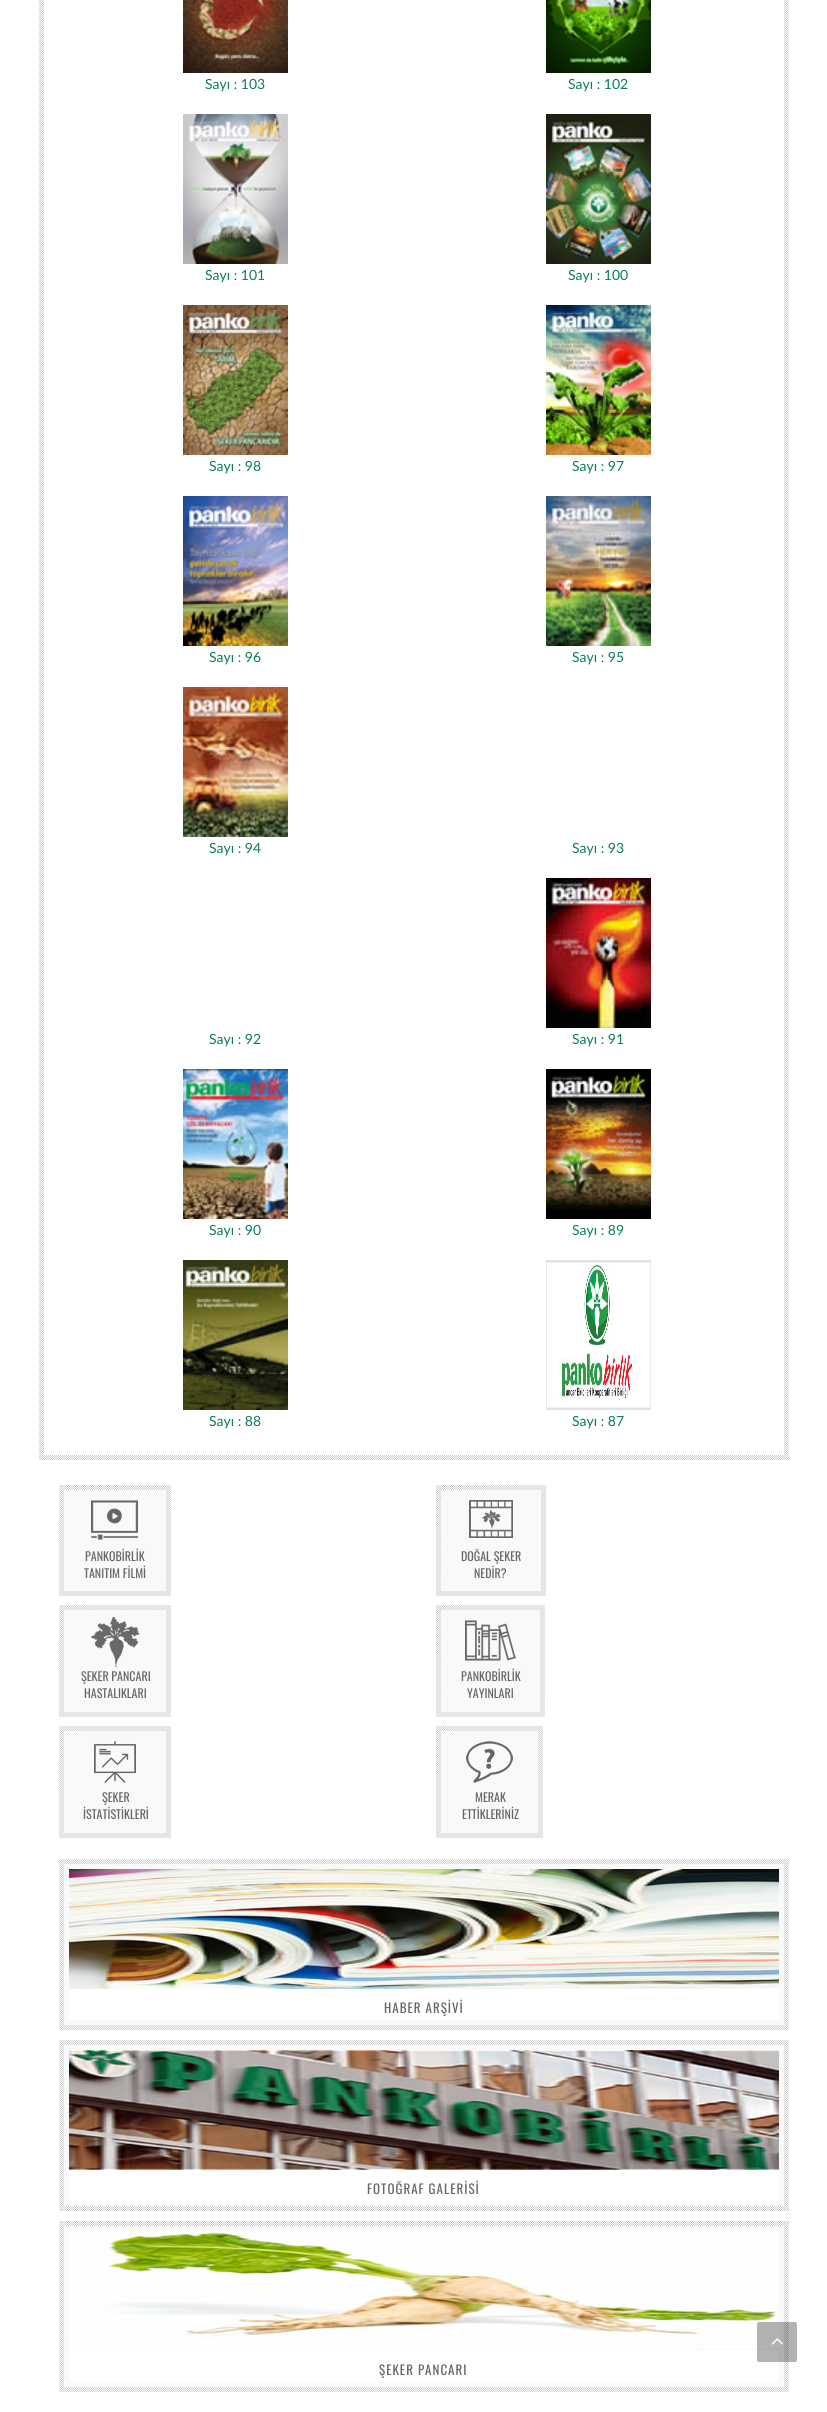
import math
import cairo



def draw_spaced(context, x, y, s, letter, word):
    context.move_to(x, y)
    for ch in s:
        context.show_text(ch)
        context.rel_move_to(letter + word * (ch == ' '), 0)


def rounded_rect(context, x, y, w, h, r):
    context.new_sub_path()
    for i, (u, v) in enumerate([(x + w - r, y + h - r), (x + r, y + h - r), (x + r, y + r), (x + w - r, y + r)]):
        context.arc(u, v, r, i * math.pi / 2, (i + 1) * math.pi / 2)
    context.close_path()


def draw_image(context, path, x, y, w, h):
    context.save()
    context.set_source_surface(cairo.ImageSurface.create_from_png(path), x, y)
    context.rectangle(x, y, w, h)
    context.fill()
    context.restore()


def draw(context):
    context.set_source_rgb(1, 1, 1)
    context.paint()
    draw_image(context, "images/1.png", 39, 0, 750, 1460)
    context.set_source_rgb(1, 1, 1)
    context.rectangle(44, 0, 740, 1455)
    context.fill()
    draw_image(context, "images/2.png", 183, 0, 105, 73)
    draw_image(context, "images/3.png", 546, 0, 105, 73)
    draw_image(context, "images/4.png", 183, 114, 105, 150)
    draw_image(context, "images/5.png", 546, 114, 105, 150)
    draw_image(context, "images/6.png", 183, 305, 105, 150)
    draw_image(context, "images/7.png", 546, 305, 105, 150)
    draw_image(context, "images/8.png", 183, 496, 105, 150)
    draw_image(context, "images/9.png", 546, 496, 105, 150)
    draw_image(context, "images/10.png", 183, 687, 105, 150)
    draw_image(context, "images/11.png", 546, 878, 105, 150)
    draw_image(context, "images/12.png", 183, 1069, 105, 150)
    draw_image(context, "images/13.png", 546, 1069, 105, 150)
    draw_image(context, "images/14.png", 183, 1260, 105, 150)
    draw_image(context, "images/15.png", 546, 1260, 105, 150)
    draw_image(context, "images/16.png", 59, 1485, 112, 111)
    context.set_source_rgb(249 / 255, 249 / 255, 249 / 255)
    context.rectangle(64, 1490, 102, 101)
    context.fill()
    draw_image(context, "images/17.png", 91, 1500, 47, 40)
    draw_image(context, "images/18.png", 436, 1485, 110, 111)
    context.rectangle(441, 1490, 100, 101)
    context.fill()
    draw_image(context, "images/19.png", 469, 1500, 44, 38)
    draw_image(context, "images/20.png", 59, 1605, 112, 112)
    context.rectangle(64, 1610, 102, 102)
    context.fill()
    draw_image(context, "images/21.png", 91, 1617, 49, 51)
    draw_image(context, "images/22.png", 436, 1605, 109, 112)
    context.rectangle(441, 1610, 99, 102)
    context.fill()
    draw_image(context, "images/23.png", 465, 1620, 51, 41)
    draw_image(context, "images/24.png", 59, 1726, 112, 112)
    context.rectangle(64, 1731, 102, 102)
    context.fill()
    draw_image(context, "images/25.png", 94, 1741, 42, 42)
    draw_image(context, "images/26.png", 436, 1726, 107, 112)
    context.rectangle(441, 1731, 97, 102)
    context.fill()
    draw_image(context, "images/27.png", 466, 1741, 47, 42)
    draw_image(context, "images/28.png", 59, 1859, 730, 171)
    context.rectangle(64, 1864, 720, 161)
    context.fill()
    draw_image(context, "images/29.png", 69, 1869, 710, 120)
    context.set_source_rgb(1, 1, 1)
    context.rectangle(69, 1989, 710, 31)
    context.fill()
    draw_image(context, "images/28.png", 59, 2040, 730, 171)
    context.set_source_rgb(249 / 255, 249 / 255, 249 / 255)
    context.rectangle(64, 2045, 720, 161)
    context.fill()
    draw_image(context, "images/30.png", 69, 2050, 710, 120)
    context.set_source_rgb(1, 1, 1)
    context.rectangle(69, 2170, 710, 31)
    context.fill()
    draw_image(context, "images/28.png", 59, 2221, 730, 171)
    context.set_source_rgb(249 / 255, 249 / 255, 249 / 255)
    context.rectangle(64, 2226, 720, 161)
    context.fill()
    draw_image(context, "images/31.png", 69, 2231, 710, 120)
    context.set_source_rgb(1, 1, 1)
    context.rectangle(69, 2351, 710, 31)
    context.fill()
    context.set_source_rgba(0, 0, 0, 0.3)
    rounded_rect(context, 757, 2322, 40, 40, 2)
    context.fill()
    draw_image(context, "images/32.png", 772, 2338, 11, 7)
    context.select_font_face("Lato")
    context.set_font_size(14)
    context.set_source_rgb(8 / 255, 127 / 255, 85 / 255)
    context.move_to(205, 89)
    context.show_text("Sayı : 103")
    context.move_to(568, 89)
    context.show_text("Sayı : 102")
    context.move_to(205, 280)
    context.show_text("Sayı : 101")
    context.move_to(568, 280)
    context.show_text("Sayı : 100")
    context.move_to(209, 471)
    context.show_text("Sayı : 98")
    context.move_to(572, 471)
    context.show_text("Sayı : 97")
    context.move_to(209, 662)
    context.show_text("Sayı : 96")
    context.move_to(572, 662)
    context.show_text("Sayı : 95")
    context.move_to(209, 853)
    context.show_text("Sayı : 94")
    context.move_to(572, 853)
    context.show_text("Sayı : 93")
    context.move_to(209, 1044)
    context.show_text("Sayı : 92")
    context.move_to(572, 1044)
    context.show_text("Sayı : 91")
    context.move_to(209, 1235)
    context.show_text("Sayı : 90")
    context.move_to(572, 1235)
    context.show_text("Sayı : 89")
    context.move_to(209, 1426)
    context.show_text("Sayı : 88")
    context.move_to(572, 1426)
    context.show_text("Sayı : 87")
    context.select_font_face("Oswald")
    context.set_font_size(12)
    context.set_source_rgb(102 / 255, 102 / 255, 102 / 255)
    context.move_to(85, 1561)
    context.show_text("PANKOBİRLİK")
    context.move_to(84, 1578)
    context.show_text("TANITIM FİLMİ")
    context.move_to(461, 1561)
    context.show_text("DOĞAL ŞEKER")
    context.move_to(474, 1578)
    context.show_text("NEDİR?")
    context.move_to(81, 1681)
    context.show_text("ŞEKER PANCARI")
    context.move_to(84, 1698)
    context.show_text("HASTALIKLARI")
    context.move_to(461, 1681)
    context.show_text("PANKOBİRLİK")
    context.move_to(467, 1698)
    context.show_text("YAYINLARI")
    context.move_to(102, 1802)
    context.show_text("ŞEKER")
    context.move_to(83, 1819)
    context.show_text("İSTATİSTİKLERİ")
    context.move_to(475, 1802)
    context.show_text("MERAK")
    context.move_to(462, 1819)
    context.show_text("ETTİKLERİNİZ")
    context.set_font_size(13)
    draw_spaced(context, 384, 2013, "HABER ARŞİVİ", 1, 0)
    draw_spaced(context, 367, 2194, "FOTOĞRAF GALERİSİ", 1, 0)
    draw_spaced(context, 379, 2375, "ŞEKER PANCARI", 1, 0)


surface = cairo.ImageSurface(cairo.Format.RGB24, 827, 2412)
context = cairo.Context(surface)
options = cairo.FontOptions()
options.set_hint_metrics(cairo.HintMetrics.OFF)
options.set_hint_style(cairo.HintStyle.NONE)
context.set_font_options(options)
context.set_miter_limit(4)
draw(context)
surface.write_to_png("out.png")
